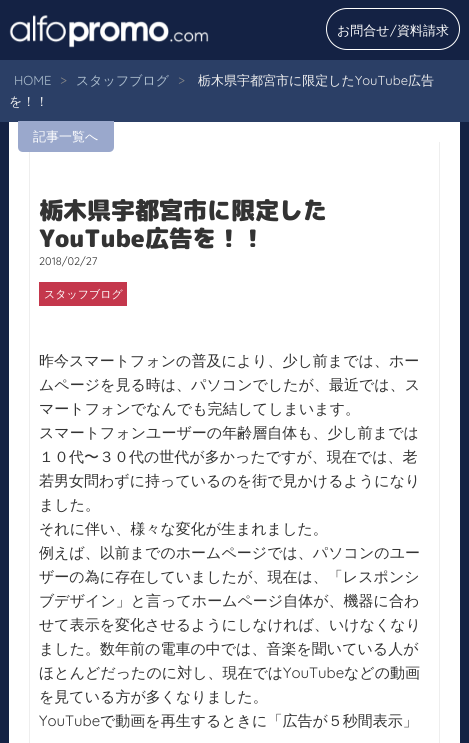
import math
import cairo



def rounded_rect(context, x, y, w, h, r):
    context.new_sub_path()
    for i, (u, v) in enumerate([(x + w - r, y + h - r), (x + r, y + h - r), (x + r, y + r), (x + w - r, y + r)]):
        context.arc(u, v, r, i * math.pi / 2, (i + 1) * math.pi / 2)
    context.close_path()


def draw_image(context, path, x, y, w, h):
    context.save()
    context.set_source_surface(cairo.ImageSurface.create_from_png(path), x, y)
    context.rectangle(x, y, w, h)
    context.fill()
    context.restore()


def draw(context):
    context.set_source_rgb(20 / 255, 34 / 255, 68 / 255)
    context.paint()
    draw_image(context, "images/1.png", 9, 15, 200, 33)
    rounded_rect(context, 326.5, 8.5, 133, 41, 20.5)
    context.set_source_rgb(1, 1, 1)
    context.set_line_width(1)
    context.stroke()
    context.set_source_rgb(43 / 255, 63 / 255, 102 / 255)
    context.rectangle(0, 60, 469, 62)
    context.fill()
    context.set_source_rgb(1, 1, 1)
    context.rectangle(9, 122, 451, 621)
    context.fill()
    context.set_source_rgb(154 / 255, 168 / 255, 204 / 255)
    context.new_path()
    context.move_to(18, 121)
    context.line_to(114, 121)
    context.line_to(114, 147)
    context.curve_to(114, 150, 112, 152, 109, 152)
    context.line_to(23, 152)
    context.curve_to(20, 152, 18, 150, 18, 147)
    context.close_path()
    context.fill()
    context.set_source_rgb(238 / 255, 238 / 255, 238 / 255)
    context.rectangle(439, 142, 1, 601)
    context.fill()
    context.rectangle(29, 152, 1, 591)
    context.fill()
    context.set_source_rgb(196 / 255, 55 / 255, 76 / 255)
    context.rectangle(39, 282, 88, 24)
    context.fill()
    context.select_font_face("WenQuanYi Zen Hei Medium")
    context.set_font_size(13)
    context.set_source_rgb(1, 1, 1)
    context.move_to(337, 35)
    context.show_text("お問合せ")
    context.select_font_face("Quicksand")
    context.move_to(390, 35)
    context.show_text("/")
    context.select_font_face("WenQuanYi Zen Hei Medium")
    context.move_to(397, 35)
    context.show_text("資料請求")
    context.select_font_face("Quicksand")
    context.set_source_rgb(170 / 255, 187 / 255, 204 / 255)
    context.move_to(14, 85)
    context.show_text("HOME")
    context.set_source_rgb(136 / 255, 136 / 255, 136 / 255)
    context.move_to(60, 85)
    context.show_text(">")
    context.select_font_face("WenQuanYi Zen Hei Medium")
    context.set_source_rgb(170 / 255, 187 / 255, 204 / 255)
    context.move_to(76, 85)
    context.show_text("スタッフブログ")
    context.select_font_face("Quicksand")
    context.set_source_rgb(136 / 255, 136 / 255, 136 / 255)
    context.move_to(178, 85)
    context.show_text(">")
    context.select_font_face("WenQuanYi Zen Hei Medium")
    context.set_source_rgb(238 / 255, 238 / 255, 238 / 255)
    context.move_to(198, 85)
    context.show_text("栃木県宇都宮市に限定した")
    context.select_font_face("Quicksand")
    context.move_to(355, 85)
    context.show_text("YouTube")
    context.select_font_face("WenQuanYi Zen Hei Medium")
    context.move_to(408, 85)
    context.show_text("広告")
    context.move_to(9, 106)
    context.show_text("を！！")
    context.set_source_rgb(1, 1, 1)
    context.move_to(33, 141)
    context.show_text("記事一覧へ")
    context.select_font_face("Rounded Mplus 1c Black")
    context.set_font_size(24)
    context.set_source_rgb(51 / 255, 51 / 255, 51 / 255)
    context.move_to(39, 219)
    context.show_text("栃木県宇都宮市に限定した")
    context.move_to(39, 247)
    context.show_text("YouTube広告を！！")
    context.select_font_face("Quicksand")
    context.set_font_size(11)
    context.move_to(39, 265)
    context.show_text("2018/02/27")
    context.select_font_face("WenQuanYi Zen Hei Medium")
    context.set_source_rgb(1, 1, 1)
    context.move_to(44, 298)
    context.show_text("スタッフブログ")
    context.set_font_size(15)
    context.set_source_rgb(51 / 255, 51 / 255, 51 / 255)
    context.move_to(39, 366)
    context.show_text("昨今スマートフォンの普及により、少し前までは、ホー")
    context.move_to(39, 390)
    context.show_text("ムページを見る時は、パソコンでしたが、最近では、ス")
    context.move_to(39, 414)
    context.show_text("マートフォンでなんでも完結してしまいます。")
    context.move_to(39, 438)
    context.show_text("スマートフォンユーザーの年齢層自体も、少し前までは")
    context.move_to(39, 462)
    context.show_text("１０代〜３０代の世代が多かったですが、現在では、老")
    context.move_to(39, 486)
    context.show_text("若男女問わずに持っているのを街で見かけるようになり")
    context.move_to(39, 510)
    context.show_text("ました。")
    context.move_to(39, 534)
    context.show_text("それに伴い、様々な変化が生まれました。")
    context.move_to(39, 558)
    context.show_text("例えば、以前までのホームページでは、パソコンのユー")
    context.move_to(39, 582)
    context.show_text("ザーの為に存在していましたが、現在は、「レスポンシ")
    context.move_to(39, 606)
    context.show_text("ブデザイン」と言ってホームページ自体が、機器に合わ")
    context.move_to(39, 630)
    context.show_text("せて表示を変化させるようにしなければ、いけなくなり")
    context.move_to(39, 654)
    context.show_text("ました。数年前の電車の中では、音楽を聞いている人が")
    context.move_to(39, 678)
    context.show_text("ほとんどだったのに対し、現在では")
    context.select_font_face("Quicksand")
    context.move_to(283, 678)
    context.show_text("YouTube")
    context.select_font_face("WenQuanYi Zen Hei Medium")
    context.move_to(344, 678)
    context.show_text("などの動画")
    context.move_to(39, 702)
    context.show_text("を見ている方が多くなりました。")
    context.select_font_face("Quicksand")
    context.move_to(39, 726)
    context.show_text("YouTube")
    context.select_font_face("WenQuanYi Zen Hei Medium")
    context.move_to(100, 726)
    context.show_text("で動画を再生するときに「広告が５秒間表示」")


surface = cairo.ImageSurface(cairo.Format.RGB24, 469, 743)
context = cairo.Context(surface)
options = cairo.FontOptions()
options.set_hint_metrics(cairo.HintMetrics.OFF)
options.set_hint_style(cairo.HintStyle.NONE)
context.set_font_options(options)
context.set_miter_limit(4)
draw(context)
surface.write_to_png("out.png")
